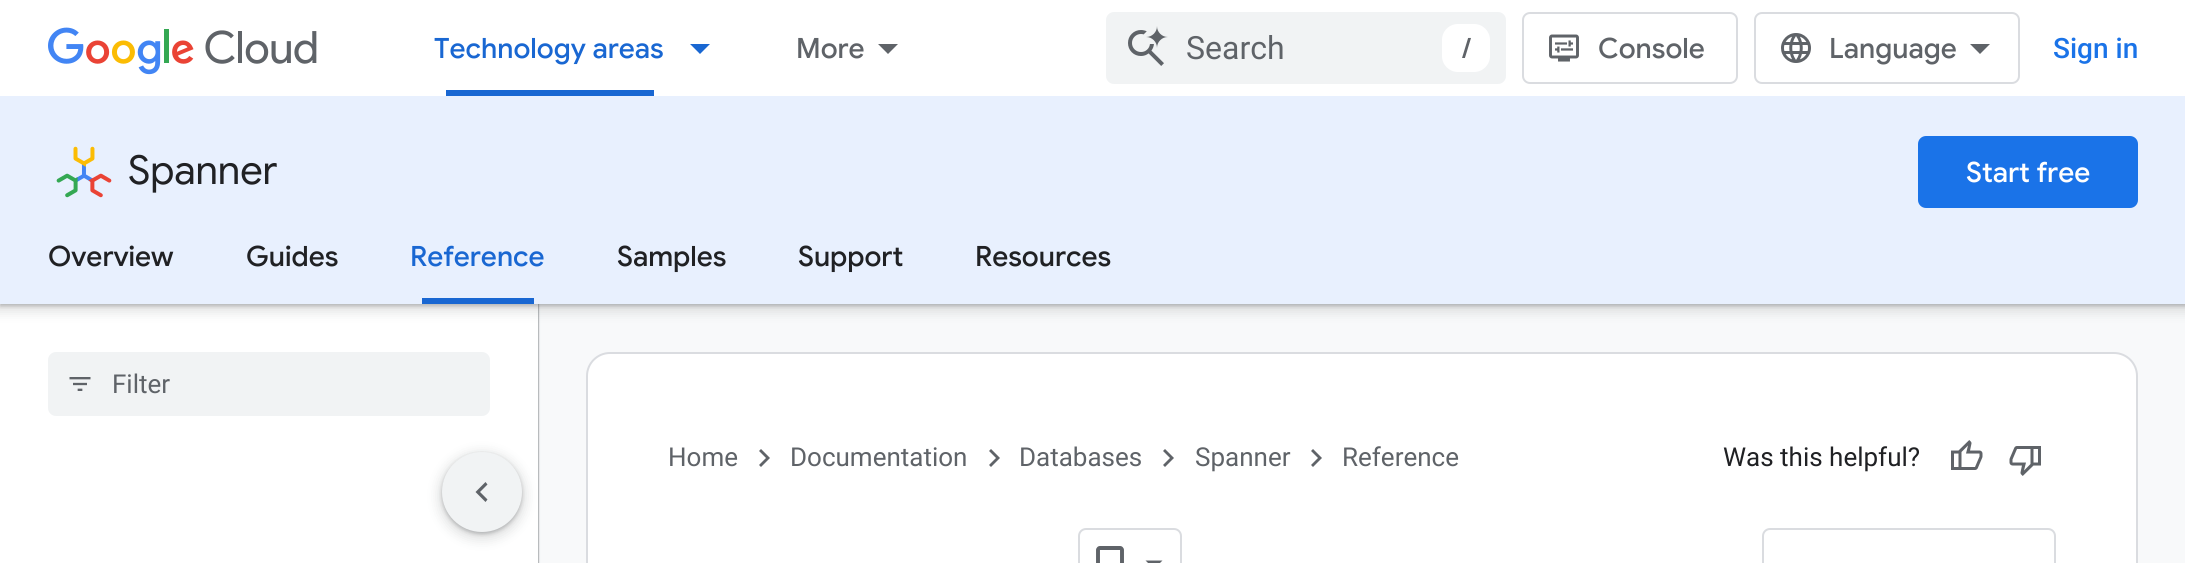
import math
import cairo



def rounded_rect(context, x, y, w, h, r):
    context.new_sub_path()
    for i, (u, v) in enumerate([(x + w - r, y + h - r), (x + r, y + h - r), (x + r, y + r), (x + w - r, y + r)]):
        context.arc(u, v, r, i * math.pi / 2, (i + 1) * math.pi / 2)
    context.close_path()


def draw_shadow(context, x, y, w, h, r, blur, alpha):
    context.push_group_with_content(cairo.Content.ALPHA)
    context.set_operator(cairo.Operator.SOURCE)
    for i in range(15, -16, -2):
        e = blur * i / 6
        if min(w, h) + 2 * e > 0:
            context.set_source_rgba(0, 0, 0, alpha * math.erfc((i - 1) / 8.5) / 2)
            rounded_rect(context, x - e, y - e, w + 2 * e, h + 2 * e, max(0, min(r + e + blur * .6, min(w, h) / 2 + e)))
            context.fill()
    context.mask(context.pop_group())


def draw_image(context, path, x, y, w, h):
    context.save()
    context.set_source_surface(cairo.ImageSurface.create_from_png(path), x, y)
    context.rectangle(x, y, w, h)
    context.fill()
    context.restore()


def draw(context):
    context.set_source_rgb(248 / 255, 249 / 255, 250 / 255)
    context.paint()
    context.set_source_rgb(60 / 255, 64 / 255, 67 / 255)
    draw_shadow(context, 0, 2, 538, 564, 0, 1, 1)
    context.set_source_rgb(1, 1, 1)
    context.rectangle(0, 304, 538, 259)
    context.fill()
    context.set_source_rgb(60 / 255, 64 / 255, 67 / 255)
    draw_shadow(context, -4, 96, 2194, 216, 0, 6, 0.15)
    draw_shadow(context, 0, 98, 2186, 208, 0, 2, 0.3)
    context.set_source_rgb(1, 1, 1)
    context.rectangle(0, 0, 2185, 96)
    context.fill()
    draw_image(context, "images/1.png", 48, 27, 269, 48)
    context.set_source_rgb(25 / 255, 103 / 255, 210 / 255)
    context.rectangle(446, 90, 208, 6)
    context.fill()
    context.new_path()
    context.move_to(690, 44)
    context.line_to(710, 44)
    context.line_to(700, 54)
    context.close_path()
    context.fill()
    context.set_source_rgb(95 / 255, 99 / 255, 104 / 255)
    context.new_path()
    context.move_to(878, 44)
    context.line_to(898, 44)
    context.line_to(888, 54)
    context.close_path()
    context.fill()
    context.set_source_rgb(241 / 255, 243 / 255, 244 / 255)
    rounded_rect(context, 1106, 12, 400, 72, 8)
    context.fill()
    draw_image(context, "images/2.png", 1128, 26, 40, 40)
    context.set_source_rgb(1, 1, 1)
    rounded_rect(context, 1442, 24, 48, 48, 16)
    context.fill()
    rounded_rect(context, 1523, 13, 214, 70, 7)
    context.set_source_rgb(218 / 255, 220 / 255, 224 / 255)
    context.stroke()
    draw_image(context, "images/3.png", 1549, 34, 30, 28)
    rounded_rect(context, 1755, 13, 264, 70, 7)
    context.stroke()
    draw_image(context, "images/4.png", 1781, 33, 30, 30)
    context.set_source_rgb(95 / 255, 99 / 255, 104 / 255)
    context.new_path()
    context.move_to(1980, 54)
    context.line_to(1970, 44)
    context.line_to(1990, 44)
    context.close_path()
    context.fill()
    context.set_source_rgb(232 / 255, 240 / 255, 254 / 255)
    context.rectangle(0, 96, 2185, 208)
    context.fill()
    draw_image(context, "images/5.png", 56, 146, 56, 52)
    context.set_source_rgb(26 / 255, 115 / 255, 232 / 255)
    rounded_rect(context, 1918, 136, 220, 72, 8)
    context.fill()
    context.set_source_rgb(25 / 255, 103 / 255, 210 / 255)
    context.rectangle(422, 298, 112, 6)
    context.fill()
    context.set_source_rgb(241 / 255, 243 / 255, 244 / 255)
    rounded_rect(context, 48, 352, 442, 64, 8)
    context.fill()
    draw_image(context, "images/6.png", 69, 377, 22, 14)
    context.set_source_rgb(60 / 255, 64 / 255, 67 / 255)
    draw_shadow(context, 438, 452, 88, 88, 44, 6, 0.15)
    draw_shadow(context, 442, 454, 80, 80, 40, 2, 0.3)
    context.set_source_rgb(241 / 255, 243 / 255, 244 / 255)
    context.arc(482, 492, 40, 0, 2 * math.pi)
    context.fill()
    context.set_source_rgb(95 / 255, 99 / 255, 104 / 255)
    context.new_path()
    context.move_to(487.5, 484.5)
    context.line_to(480, 492)
    context.line_to(487.5, 499.5)
    context.line_to(485.5, 502)
    context.line_to(475.5, 492)
    context.line_to(485.5, 482)
    context.close_path()
    context.fill()
    context.set_source_rgb(1, 1, 1)
    rounded_rect(context, 587, 353, 1550, 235, 23)
    context.fill_preserve()
    context.set_source_rgb(218 / 255, 220 / 255, 224 / 255)
    context.stroke()
    context.set_source_rgb(95 / 255, 99 / 255, 104 / 255)
    context.new_path()
    context.move_to(761, 449)
    context.line_to(770, 458)
    context.line_to(761, 467)
    context.line_to(759, 465)
    context.line_to(766, 458)
    context.line_to(759, 451)
    context.close_path()
    context.fill()
    context.new_path()
    context.move_to(991, 449)
    context.line_to(1000, 458)
    context.line_to(991, 467)
    context.line_to(989, 465)
    context.line_to(996, 458)
    context.line_to(989, 451)
    context.close_path()
    context.fill()
    context.new_path()
    context.move_to(1165, 449)
    context.line_to(1174, 458)
    context.line_to(1165, 467)
    context.line_to(1163, 465)
    context.line_to(1170, 458)
    context.line_to(1163, 451)
    context.close_path()
    context.fill()
    context.new_path()
    context.move_to(1313, 449)
    context.line_to(1322, 458)
    context.line_to(1313, 467)
    context.line_to(1311, 465)
    context.line_to(1318, 458)
    context.line_to(1311, 451)
    context.close_path()
    context.fill()
    draw_image(context, "images/7.png", 1951, 440, 32, 30)
    draw_image(context, "images/8.png", 2009, 446, 32, 30)
    rounded_rect(context, 1079, 529, 102, 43, 7)
    context.set_source_rgb(218 / 255, 220 / 255, 224 / 255)
    context.stroke()
    draw_image(context, "images/9.png", 1096, 546, 28, 17)
    context.set_source_rgb(95 / 255, 99 / 255, 104 / 255)
    context.new_path()
    context.move_to(1145.5, 560.5)
    context.line_to(1162.5, 560.5)
    context.line_to(1154, 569)
    context.close_path()
    context.fill()
    rounded_rect(context, 1763, 529, 292, 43, 7)
    context.set_source_rgb(218 / 255, 220 / 255, 224 / 255)
    context.stroke()
    context.select_font_face("Google Sans Medium")
    context.set_font_size(28)
    context.set_source_rgb(25 / 255, 103 / 255, 210 / 255)
    context.move_to(434, 58)
    context.show_text("Technology areas")
    context.set_source_rgb(95 / 255, 99 / 255, 104 / 255)
    context.move_to(796, 58)
    context.show_text("More")
    context.select_font_face("Roboto")
    context.set_font_size(32)
    context.move_to(1186, 59)
    context.show_text("Search")
    context.select_font_face("Google Sans Medium")
    context.set_font_size(28)
    context.move_to(1462, 58)
    context.show_text("/")
    context.move_to(1598, 58)
    context.show_text("Console")
    context.move_to(1829, 58)
    context.show_text("Language")
    context.select_font_face("Roboto Medium")
    context.set_source_rgb(26 / 255, 115 / 255, 232 / 255)
    context.move_to(2053, 58)
    context.show_text("Sign in")
    context.select_font_face("Google Sans")
    context.set_font_size(40)
    context.set_source_rgb(32 / 255, 33 / 255, 36 / 255)
    context.move_to(128, 184)
    context.show_text("Spanner")
    context.select_font_face("Google Sans Medium")
    context.set_font_size(28)
    context.set_source_rgb(1, 1, 1)
    context.move_to(1966, 182)
    context.show_text("Start free")
    context.set_source_rgb(32 / 255, 33 / 255, 36 / 255)
    context.move_to(48, 266)
    context.show_text("Overview")
    context.move_to(246, 266)
    context.show_text("Guides")
    context.set_source_rgb(25 / 255, 103 / 255, 210 / 255)
    context.move_to(410, 266)
    context.show_text("Reference")
    context.set_source_rgb(32 / 255, 33 / 255, 36 / 255)
    context.move_to(617, 266)
    context.show_text("Samples")
    context.move_to(798, 266)
    context.show_text("Support")
    context.move_to(975, 266)
    context.show_text("Resources")
    context.select_font_face("Roboto")
    context.set_font_size(26)
    context.set_source_rgb(95 / 255, 99 / 255, 104 / 255)
    context.move_to(112, 393)
    context.show_text("Filter")
    context.move_to(668, 466)
    context.show_text("Home")
    context.move_to(790, 466)
    context.show_text("Documentation")
    context.move_to(1019, 466)
    context.show_text("Databases")
    context.move_to(1195, 466)
    context.show_text("Spanner")
    context.move_to(1342, 466)
    context.show_text("Reference")
    context.set_source_rgb(32 / 255, 33 / 255, 36 / 255)
    context.move_to(1723, 466)
    context.show_text("Was this helpful?")


surface = cairo.ImageSurface(cairo.Format.RGB24, 2185, 563)
context = cairo.Context(surface)
options = cairo.FontOptions()
options.set_hint_metrics(cairo.HintMetrics.OFF)
options.set_hint_style(cairo.HintStyle.NONE)
context.set_font_options(options)
context.set_miter_limit(4)
draw(context)
surface.write_to_png("out.png")
